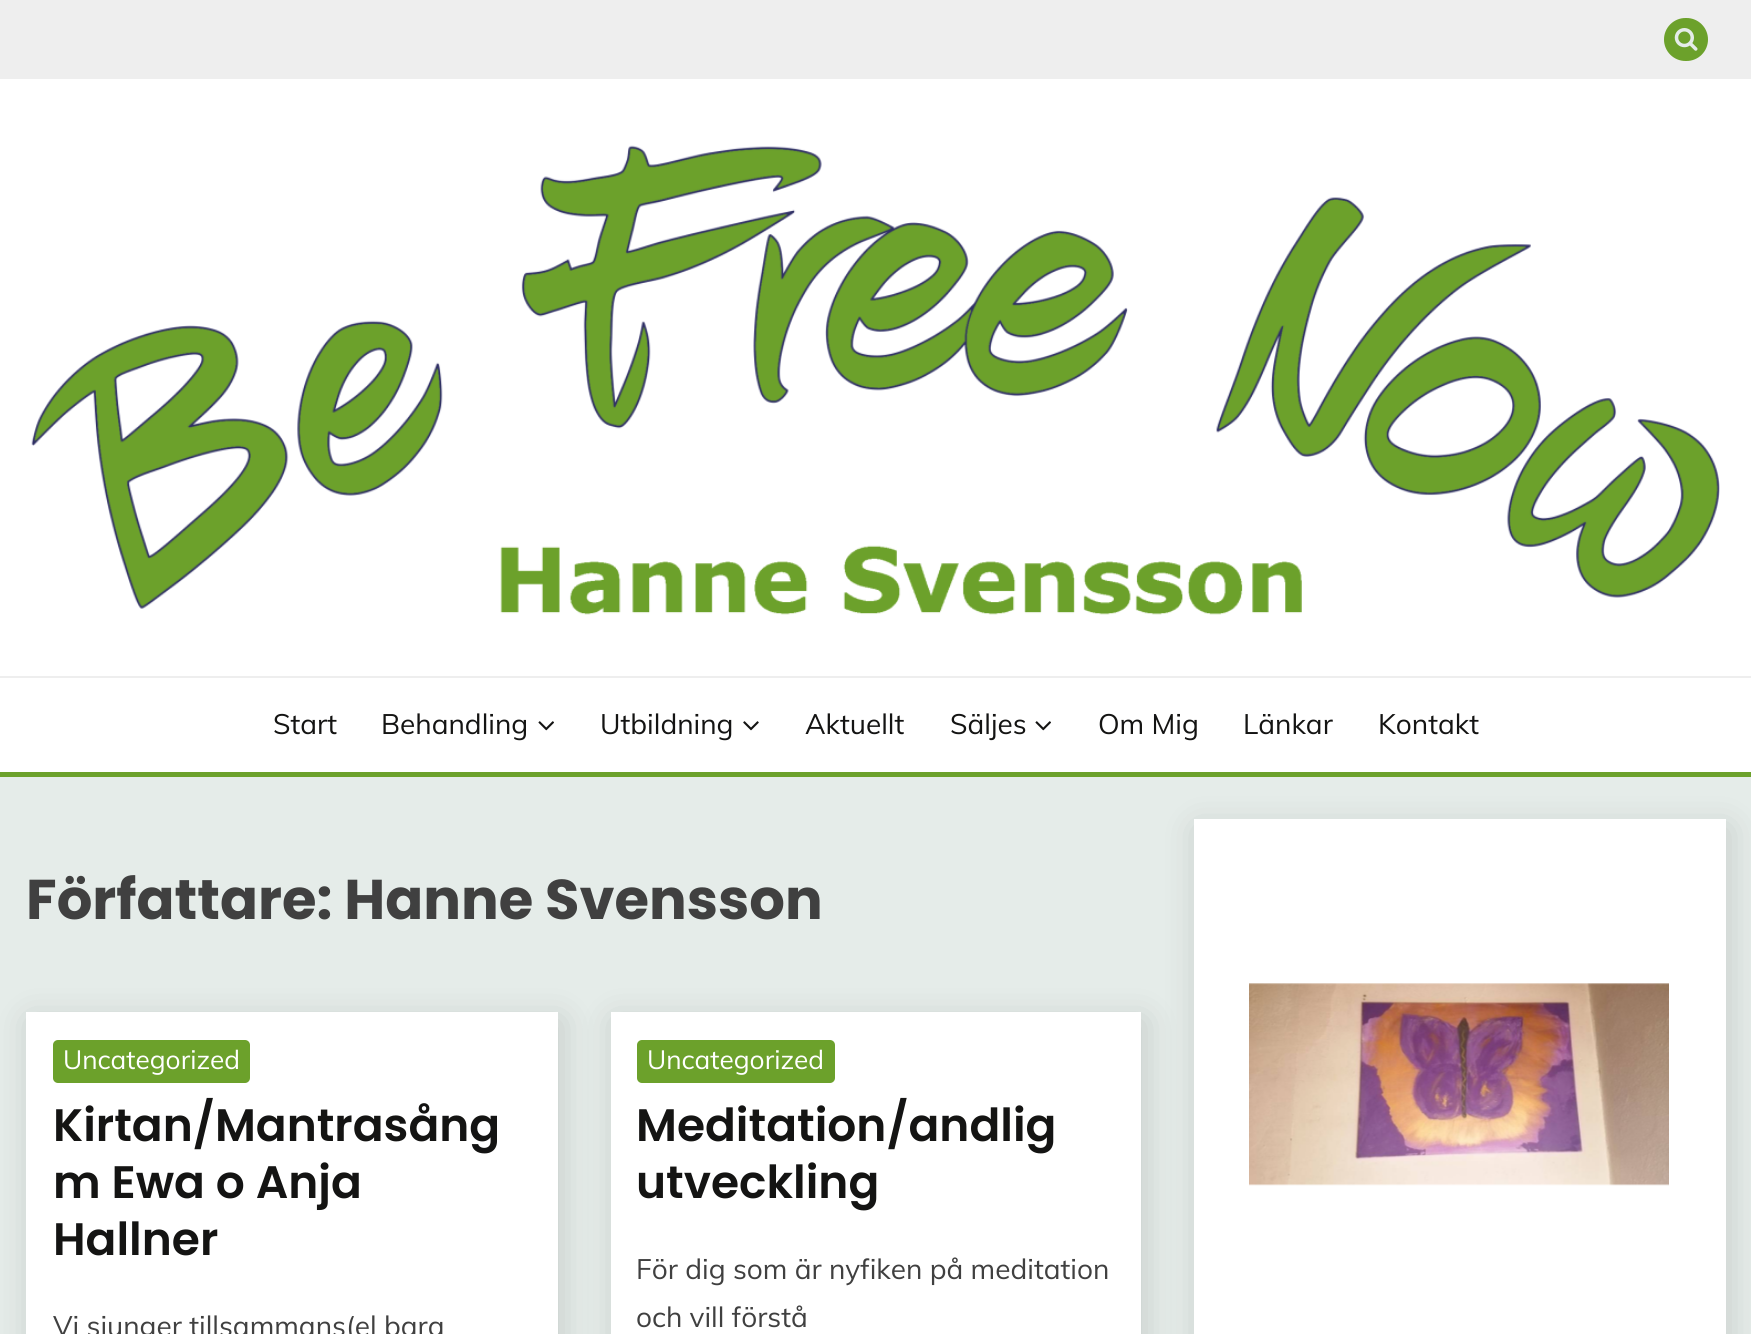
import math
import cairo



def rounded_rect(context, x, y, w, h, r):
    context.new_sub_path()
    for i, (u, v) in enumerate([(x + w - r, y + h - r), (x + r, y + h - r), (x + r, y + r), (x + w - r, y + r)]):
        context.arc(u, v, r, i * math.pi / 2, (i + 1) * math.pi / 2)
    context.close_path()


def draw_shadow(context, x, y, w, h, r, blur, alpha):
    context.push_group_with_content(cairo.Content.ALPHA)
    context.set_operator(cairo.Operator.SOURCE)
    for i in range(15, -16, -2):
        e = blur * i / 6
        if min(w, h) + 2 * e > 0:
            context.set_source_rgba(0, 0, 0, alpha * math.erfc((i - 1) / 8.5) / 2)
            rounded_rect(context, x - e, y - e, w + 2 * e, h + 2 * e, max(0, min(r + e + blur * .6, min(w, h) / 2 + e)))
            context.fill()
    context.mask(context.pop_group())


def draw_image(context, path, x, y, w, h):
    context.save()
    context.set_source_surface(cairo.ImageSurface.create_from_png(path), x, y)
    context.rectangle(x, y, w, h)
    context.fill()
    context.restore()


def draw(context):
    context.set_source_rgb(229 / 255, 236 / 255, 233 / 255)
    context.paint()
    context.set_source_rgb(1, 1, 1)
    context.rectangle(0, 79, 1751, 693)
    context.fill()
    context.set_source_rgb(238 / 255, 238 / 255, 238 / 255)
    context.rectangle(0, 0, 1751, 79)
    context.fill()
    context.set_source_rgb(108 / 255, 161 / 255, 43 / 255)
    rounded_rect(context, 1664, 18, 44, 43, 21.5)
    context.fill()
    draw_image(context, "images/1.png", 1674, 28, 24, 23)
    context.set_source_rgb(238 / 255, 238 / 255, 238 / 255)
    context.rectangle(0, 676, 1751, 2)
    context.fill()
    draw_image(context, "images/2.png", 31, 145, 1689, 470)
    context.set_source_rgb(0, 0, 0)
    draw_shadow(context, 1197, 828, 532, 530, 0, 17.5, 0.14)
    context.set_source_rgb(108 / 255, 161 / 255, 43 / 255)
    context.rectangle(0, 772, 1751, 5)
    context.fill()
    draw_image(context, "images/3.png", 538, 721, 16, 10)
    draw_image(context, "images/4.png", 743, 721, 16, 10)
    draw_image(context, "images/3.png", 1035, 721, 16, 10)
    context.set_source_rgb(0, 0, 0)
    draw_shadow(context, 30, 1020, 532, 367, 0, 17.5, 0.14)
    context.set_source_rgb(1, 1, 1)
    context.rectangle(26, 1012, 532, 322)
    context.fill()
    context.set_source_rgb(108 / 255, 161 / 255, 43 / 255)
    rounded_rect(context, 53, 1040, 197, 43, 5)
    context.fill()
    context.set_source_rgb(0, 0, 0)
    draw_shadow(context, 614, 1020, 531, 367, 0, 17.5, 0.14)
    context.set_source_rgb(1, 1, 1)
    context.rectangle(611, 1012, 530, 322)
    context.fill()
    context.set_source_rgb(108 / 255, 161 / 255, 43 / 255)
    rounded_rect(context, 637, 1040, 198, 43, 5)
    context.fill()
    context.set_source_rgb(1, 1, 1)
    context.rectangle(1194, 819, 532, 515)
    context.fill()
    draw_image(context, "images/5.png", 1249, 983, 420, 203)
    context.select_font_face("Muli")
    context.set_font_size(28)
    context.set_source_rgb(20 / 255, 20 / 255, 19 / 255)
    context.move_to(273, 734)
    context.show_text("Start")
    context.move_to(381, 734)
    context.show_text("Behandling")
    context.move_to(600, 734)
    context.show_text("Utbildning")
    context.move_to(805, 734)
    context.show_text("Aktuellt")
    context.move_to(950, 734)
    context.show_text("Säljes")
    context.move_to(1098, 734)
    context.show_text("Om Mig")
    context.move_to(1243, 734)
    context.show_text("Länkar")
    context.move_to(1378, 734)
    context.show_text("Kontakt")
    context.select_font_face("Poppins", cairo.FontSlant.NORMAL, cairo.FontWeight.BOLD)
    context.set_font_size(56)
    context.set_source_rgb(64 / 255, 64 / 255, 64 / 255)
    context.move_to(26, 919)
    context.show_text("Författare: Hanne Svensson")
    context.select_font_face("Muli")
    context.set_font_size(26.25)
    context.set_source_rgb(1, 1, 1)
    context.move_to(63, 1069)
    context.show_text("Uncategorized")
    context.select_font_face("Poppins SemiBold")
    context.set_font_size(45.5)
    context.set_source_rgb(20 / 255, 20 / 255, 19 / 255)
    context.move_to(53, 1141)
    context.show_text("Kirtan/Mantrasång")
    context.move_to(53, 1198)
    context.show_text("m Ewa o Anja")
    context.move_to(53, 1255)
    context.show_text("Hallner")
    context.select_font_face("Muli")
    context.set_font_size(28)
    context.set_source_rgb(64 / 255, 64 / 255, 64 / 255)
    context.move_to(53, 1336)
    context.show_text("Vi sjunger tillsammans(el bara")
    context.set_font_size(26.25)
    context.set_source_rgb(1, 1, 1)
    context.move_to(647, 1069)
    context.show_text("Uncategorized")
    context.select_font_face("Poppins SemiBold")
    context.set_font_size(45.5)
    context.set_source_rgb(20 / 255, 20 / 255, 19 / 255)
    context.move_to(636, 1141)
    context.show_text("Meditation/andlig")
    context.move_to(636, 1198)
    context.show_text("utveckling")
    context.select_font_face("Muli")
    context.set_font_size(28)
    context.set_source_rgb(64 / 255, 64 / 255, 64 / 255)
    context.move_to(636, 1279)
    context.show_text("För dig som är nyfiken på meditation")
    context.move_to(636, 1327)
    context.show_text("och vill förstå")


surface = cairo.ImageSurface(cairo.Format.RGB24, 1751, 1334)
context = cairo.Context(surface)
options = cairo.FontOptions()
options.set_hint_metrics(cairo.HintMetrics.OFF)
options.set_hint_style(cairo.HintStyle.NONE)
context.set_font_options(options)
context.set_miter_limit(4)
draw(context)
surface.write_to_png("out.png")
